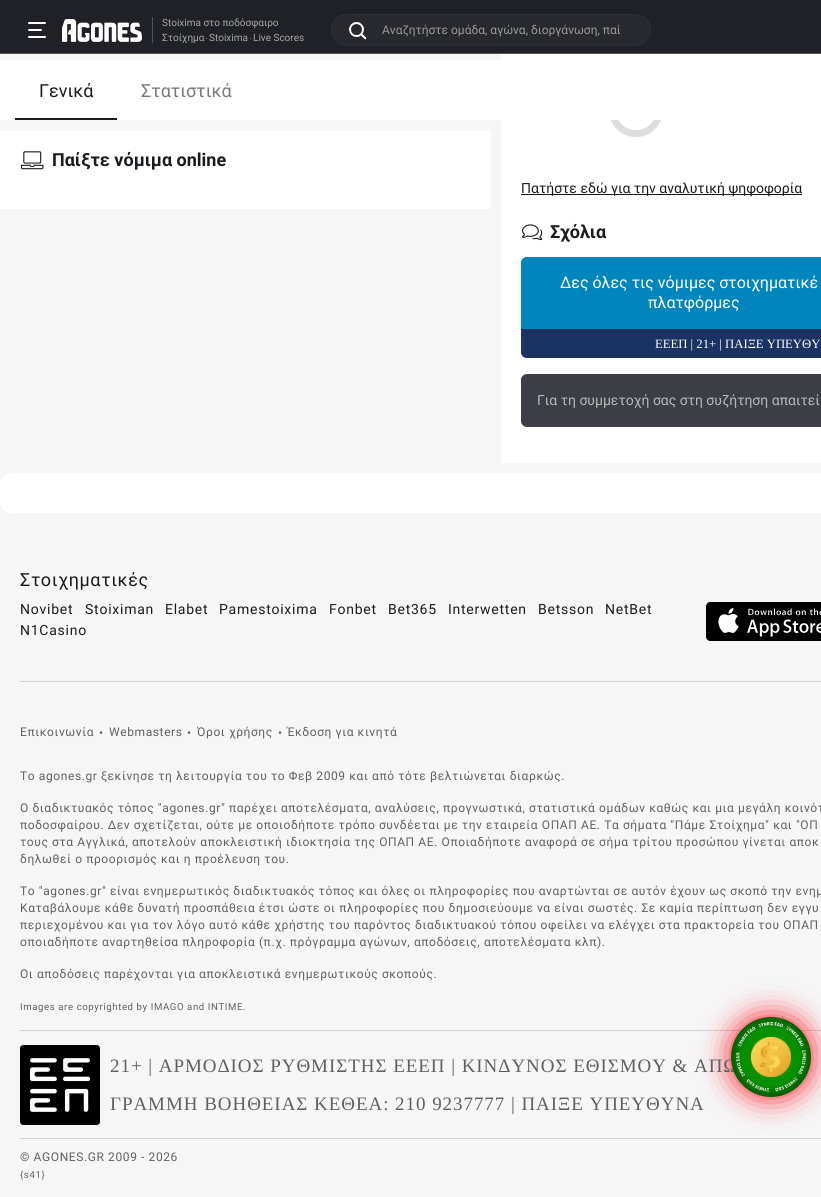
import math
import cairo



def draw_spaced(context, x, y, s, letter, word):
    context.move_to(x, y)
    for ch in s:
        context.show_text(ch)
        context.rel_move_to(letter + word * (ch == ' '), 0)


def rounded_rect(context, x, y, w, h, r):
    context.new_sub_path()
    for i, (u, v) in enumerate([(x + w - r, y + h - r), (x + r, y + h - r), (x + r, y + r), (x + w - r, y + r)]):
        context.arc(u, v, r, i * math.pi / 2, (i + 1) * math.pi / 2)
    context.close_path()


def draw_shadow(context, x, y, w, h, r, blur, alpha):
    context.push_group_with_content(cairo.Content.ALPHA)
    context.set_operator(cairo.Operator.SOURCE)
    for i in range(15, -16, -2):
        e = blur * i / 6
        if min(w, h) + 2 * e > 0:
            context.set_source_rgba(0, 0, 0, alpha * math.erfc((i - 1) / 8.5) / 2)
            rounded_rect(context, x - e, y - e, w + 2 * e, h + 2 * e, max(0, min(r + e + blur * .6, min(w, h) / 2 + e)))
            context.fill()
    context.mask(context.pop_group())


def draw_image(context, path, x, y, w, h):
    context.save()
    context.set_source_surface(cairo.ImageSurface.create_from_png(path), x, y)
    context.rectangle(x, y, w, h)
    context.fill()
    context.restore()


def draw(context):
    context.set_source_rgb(246 / 255, 246 / 255, 246 / 255)
    context.paint()
    context.set_source_rgb(31 / 255, 33 / 255, 38 / 255)
    context.rectangle(0, 0, 821, 53)
    context.fill()
    context.set_source_rgb(81 / 255, 83 / 255, 86 / 255)
    context.rectangle(0, 53, 821, 1)
    context.fill()
    draw_image(context, "images/1.png", 28, 22, 18, 16)
    draw_image(context, "images/2.png", 62, 19, 80, 23)
    context.set_source_rgb(81 / 255, 83 / 255, 101 / 255)
    context.rectangle(152, 17, 1, 26)
    context.fill()
    context.set_source_rgb(166 / 255, 166 / 255, 166 / 255)
    context.arc(206.5, 38.5, 0.5, 0, 2 * math.pi)
    context.fill()
    context.arc(250.5, 38.5, 0.5, 0, 2 * math.pi)
    context.fill()
    context.set_source_rgb(39 / 255, 41 / 255, 47 / 255)
    rounded_rect(context, 331.5, 14.5, 319, 31, 15.5)
    context.fill_preserve()
    context.set_source_rgb(44 / 255, 47 / 255, 52 / 255)
    context.set_line_width(1)
    context.stroke()
    draw_image(context, "images/3.png", 349, 22, 18, 18)
    context.set_source_rgb(1, 1, 1)
    context.rectangle(0, 60, 501, 60)
    context.fill()
    context.set_source_rgb(25 / 255, 28 / 255, 31 / 255)
    context.rectangle(15, 118, 102, 2)
    context.fill()
    context.set_source_rgb(1, 1, 1)
    context.rectangle(0, 131, 491, 78)
    context.fill()
    draw_image(context, "images/4.png", 21, 151, 23, 19)
    context.rectangle(501, 54, 320, 409)
    context.fill()
    draw_image(context, "images/5.png", 610, 120, 52, 17)
    context.set_source_rgb(25 / 255, 28 / 255, 31 / 255)
    context.rectangle(521, 194, 281, 1)
    context.fill()
    draw_image(context, "images/6.png", 522, 224, 21, 17)
    context.set_source_rgb(0, 134 / 255, 188 / 255)
    context.new_path()
    context.move_to(527, 257)
    context.line_to(821, 257)
    context.curve_to(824.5, 257, 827, 259.5, 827, 263)
    context.line_to(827, 329)
    context.line_to(521, 329)
    context.line_to(521, 263)
    context.curve_to(521, 259.5, 523.5, 257, 527, 257)
    context.close_path()
    context.fill()
    context.set_source_rgb(26 / 255, 51 / 255, 98 / 255)
    context.new_path()
    context.move_to(521, 329)
    context.line_to(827, 329)
    context.line_to(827, 352)
    context.curve_to(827, 355.5, 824.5, 358, 821, 358)
    context.line_to(527, 358)
    context.curve_to(523.5, 358, 521, 355.5, 521, 352)
    context.close_path()
    context.fill()
    context.set_source_rgb(60 / 255, 62 / 255, 70 / 255)
    rounded_rect(context, 521, 374, 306, 53, 6)
    context.fill()
    context.set_source_rgb(1, 1, 1)
    rounded_rect(context, 0, 473, 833, 40, 12)
    context.fill()
    context.set_source_rgb(209 / 255, 209 / 255, 209 / 255)
    context.rectangle(20, 681, 801, 1)
    context.fill()
    draw_image(context, "images/7.png", 706, 602, 115, 39)
    context.rectangle(20, 1030, 801, 1)
    context.fill()
    context.rectangle(20, 1138, 801, 1)
    context.fill()
    draw_image(context, "images/8.png", 20, 1045, 80, 80)
    context.set_source_rgb(1, 19 / 255, 35 / 255)
    draw_shadow(context, 731, 1017, 80, 80, 40, 15, 1)
    context.select_font_face("Roboto")
    context.set_font_size(10)
    context.set_source_rgb(166 / 255, 166 / 255, 166 / 255)
    context.move_to(162, 26)
    context.show_text("Stoixima στο ποδόσφαιρο")
    context.move_to(162, 41)
    context.show_text("Στοίχημα")
    context.move_to(209, 41)
    context.show_text("Stoixima")
    context.move_to(253, 41)
    context.show_text("Live Scores")
    context.set_font_size(12)
    context.set_source_rgb(153 / 255, 153 / 255, 153 / 255)
    context.move_to(382, 34)
    context.show_text("Αναζητήστε ομάδα, αγώνα, διοργάνωση, παί")
    context.set_font_size(18)
    context.set_source_rgb(25 / 255, 28 / 255, 31 / 255)
    context.move_to(39, 97)
    context.show_text("Γενικά")
    context.set_source_rgb(121 / 255, 121 / 255, 121 / 255)
    context.move_to(141, 97)
    context.show_text("Στατιστικά")
    context.select_font_face("Roboto", cairo.FontSlant.NORMAL, cairo.FontWeight.BOLD)
    context.set_source_rgb(25 / 255, 28 / 255, 31 / 255)
    context.move_to(52, 166)
    context.show_text("Παίξτε νόμιμα online")
    context.select_font_face("Roboto")
    context.set_font_size(14)
    context.move_to(521, 193)
    context.show_text("Πατήστε εδώ για την αναλυτική ψηφοφορία")
    context.select_font_face("Roboto", cairo.FontSlant.NORMAL, cairo.FontWeight.BOLD)
    context.set_font_size(18)
    context.move_to(550, 238)
    context.show_text("Σχόλια")
    context.select_font_face("Roboto")
    context.set_font_size(16)
    context.set_source_rgb(1, 1, 1)
    context.move_to(560, 288)
    context.show_text("Δες όλες τις νόμιμες στοιχηματικέ")
    context.move_to(648, 308)
    context.show_text("πλατφόρμες")
    context.select_font_face("Liberation Serif")
    context.set_font_size(12.7)
    context.move_to(655, 348)
    context.show_text("ΕΕΕΠ | 21+ | ΠΑΙΞΕ ΥΠΕΥΘΥ")
    context.select_font_face("Roboto")
    context.set_font_size(14)
    context.set_source_rgb(184 / 255, 184 / 255, 184 / 255)
    context.move_to(537, 405)
    context.show_text("Για τη συμμετοχή σας στη συζήτηση απαιτεί")
    context.set_font_size(18)
    context.set_source_rgb(25 / 255, 28 / 255, 31 / 255)
    draw_spaced(context, 20, 586, "Στοιχηματικές", 0.6, 0)
    context.set_font_size(14)
    draw_spaced(context, 20, 614, "Novibet", 0.75, 0)
    draw_spaced(context, 85, 614, "Stoiximan", 0.75, 0)
    draw_spaced(context, 165, 614, "Elabet", 0.75, 0)
    draw_spaced(context, 219, 614, "Pamestoixima", 0.75, 0)
    draw_spaced(context, 329, 614, "Fonbet", 0.75, 0)
    draw_spaced(context, 388, 614, "Bet365", 0.75, 0)
    draw_spaced(context, 448, 614, "Interwetten", 0.75, 0)
    draw_spaced(context, 538, 614, "Betsson", 0.75, 0)
    draw_spaced(context, 605, 614, "NetBet", 0.75, 0)
    draw_spaced(context, 20, 635, "N1Casino", 0.75, 0)
    context.set_font_size(12)
    context.set_source_rgb(96 / 255, 96 / 255, 96 / 255)
    draw_spaced(context, 20, 736, "Επικοινωνία", 0.6, 0)
    draw_spaced(context, 99, 737, "•", 0.6, 0)
    draw_spaced(context, 109, 736, "Webmasters", 0.6, 0)
    draw_spaced(context, 187, 737, "•", 0.6, 0)
    draw_spaced(context, 197, 736, "Όροι χρήσης", 0.6, 0)
    draw_spaced(context, 278, 737, "•", 0.6, 0)
    draw_spaced(context, 287, 736, "Έκδοση για κινητά", 0.6, 0)
    draw_spaced(context, 20, 780, "Το agones.gr ξεκίνησε τη λειτουργία του το Φεβ 2009 και από τότε βελτιώνεται διαρκώς.", 0.6, 0)
    draw_spaced(context, 20, 812, "Ο διαδικτυακός τόπος \"agones.gr\" παρέχει αποτελέσματα, αναλύσεις, προγνωστικά, στατιστικά ομάδων καθώς και μια μεγάλη κοινότ", 0.6, 0)
    draw_spaced(context, 20, 829, "ποδοσφαίρου. Δεν σχετίζεται, ούτε με οποιοδήποτε τρόπο συνδέεται με την εταιρεία ΟΠΑΠ ΑΕ. Τα σήματα \"Πάμε Στοίχημα\" και \"ΟΠ", 0.6, 0)
    draw_spaced(context, 20, 846, "τους στα Αγγλικά, αποτελούν αποκλειστική ιδιοκτησία της ΟΠΑΠ ΑΕ. Οποιαδήποτε αναφορά σε σήμα τρίτου προσώπου γίνεται αποκ", 0.6, 0)
    draw_spaced(context, 20, 863, "δηλωθεί ο προορισμός και η προέλευση του.", 0.6, 0)
    draw_spaced(context, 20, 895, "Το \"agones.gr\" είναι ενημερωτικός διαδικτυακός τόπος και όλες οι πληροφορίες που αναρτώνται σε αυτόν έχουν ως σκοπό την ενημ", 0.6, 0)
    draw_spaced(context, 20, 912, "Καταβάλουμε κάθε δυνατή προσπάθεια έτσι ώστε οι πληροφορίες που δημοσιεύουμε να είναι σωστές. Σε καμία περίπτωση δεν εγγυ", 0.6, 0)
    draw_spaced(context, 20, 929, "περιεχομένου και για τον λόγο αυτό κάθε χρήστης του παρόντος διαδικτυακού τόπου οφείλει να ελέγχει στα πρακτορεία του ΟΠΑΠ", 0.6, 0)
    draw_spaced(context, 20, 946, "οποιαδήποτε αναρτηθείσα πληροφορία (π.χ. πρόγραμμα αγώνων, αποδόσεις, αποτελέσματα κλπ).", 0.6, 0)
    draw_spaced(context, 20, 978, "Οι αποδόσεις παρέχονται για αποκλειστικά ενημερωτικούς σκοπούς.", 0.6, 0)
    context.set_font_size(9.6)
    draw_spaced(context, 20, 1010, "Images are copyrighted by IMAGO and INTIME.", 0.6, 0)
    context.select_font_face("Liberation Serif")
    context.set_font_size(19)
    draw_spaced(context, 110, 1072, "21+ | ΑΡΜΟΔΙΟΣ ΡΥΘΜΙΣΤΗΣ ΕΕΕΠ | ΚΙΝΔΥΝΟΣ ΕΘΙΣΜΟΥ & ΑΠΩ", 0.95, 0)
    draw_spaced(context, 110, 1110, "ΓΡΑΜΜΗ ΒΟΗΘΕΙΑΣ ΚΕΘΕΑ: 210 9237777 | ΠΑΙΞΕ ΥΠΕΥΘΥΝΑ", 0.95, 0)
    context.select_font_face("Roboto")
    context.set_font_size(12)
    draw_spaced(context, 20, 1161, "© AGONES.GR 2009 - 2026", 0.6, 0)
    context.set_font_size(9.6)
    draw_spaced(context, 20, 1178, "{s41}", 0.6, 0)
    gradient = cairo.RadialGradient(771, 1057, 0, 771, 1057, 57)
    gradient.add_color_stop_rgba(0, 7 / 255, 145 / 255, 0, 1)
    gradient.add_color_stop_rgba(0.5, 7 / 255, 145 / 255, 0, 1)
    gradient.add_color_stop_rgba(1, 2 / 255, 10 / 255, 2 / 255, 1)
    context.set_source(gradient)
    context.new_path()
    context.arc(771, 1057, 40, 0, 2 * math.pi)
    context.fill()
    draw_image(context, "images/10.png", 751, 1037, 40, 40)
    draw_image(context, "images/9.png", 736, 1022, 70, 70)


surface = cairo.ImageSurface(cairo.Format.RGB24, 821, 1197)
context = cairo.Context(surface)
options = cairo.FontOptions()
options.set_hint_metrics(cairo.HintMetrics.OFF)
options.set_hint_style(cairo.HintStyle.NONE)
context.set_font_options(options)
context.set_miter_limit(4)
draw(context)
surface.write_to_png("out.png")
